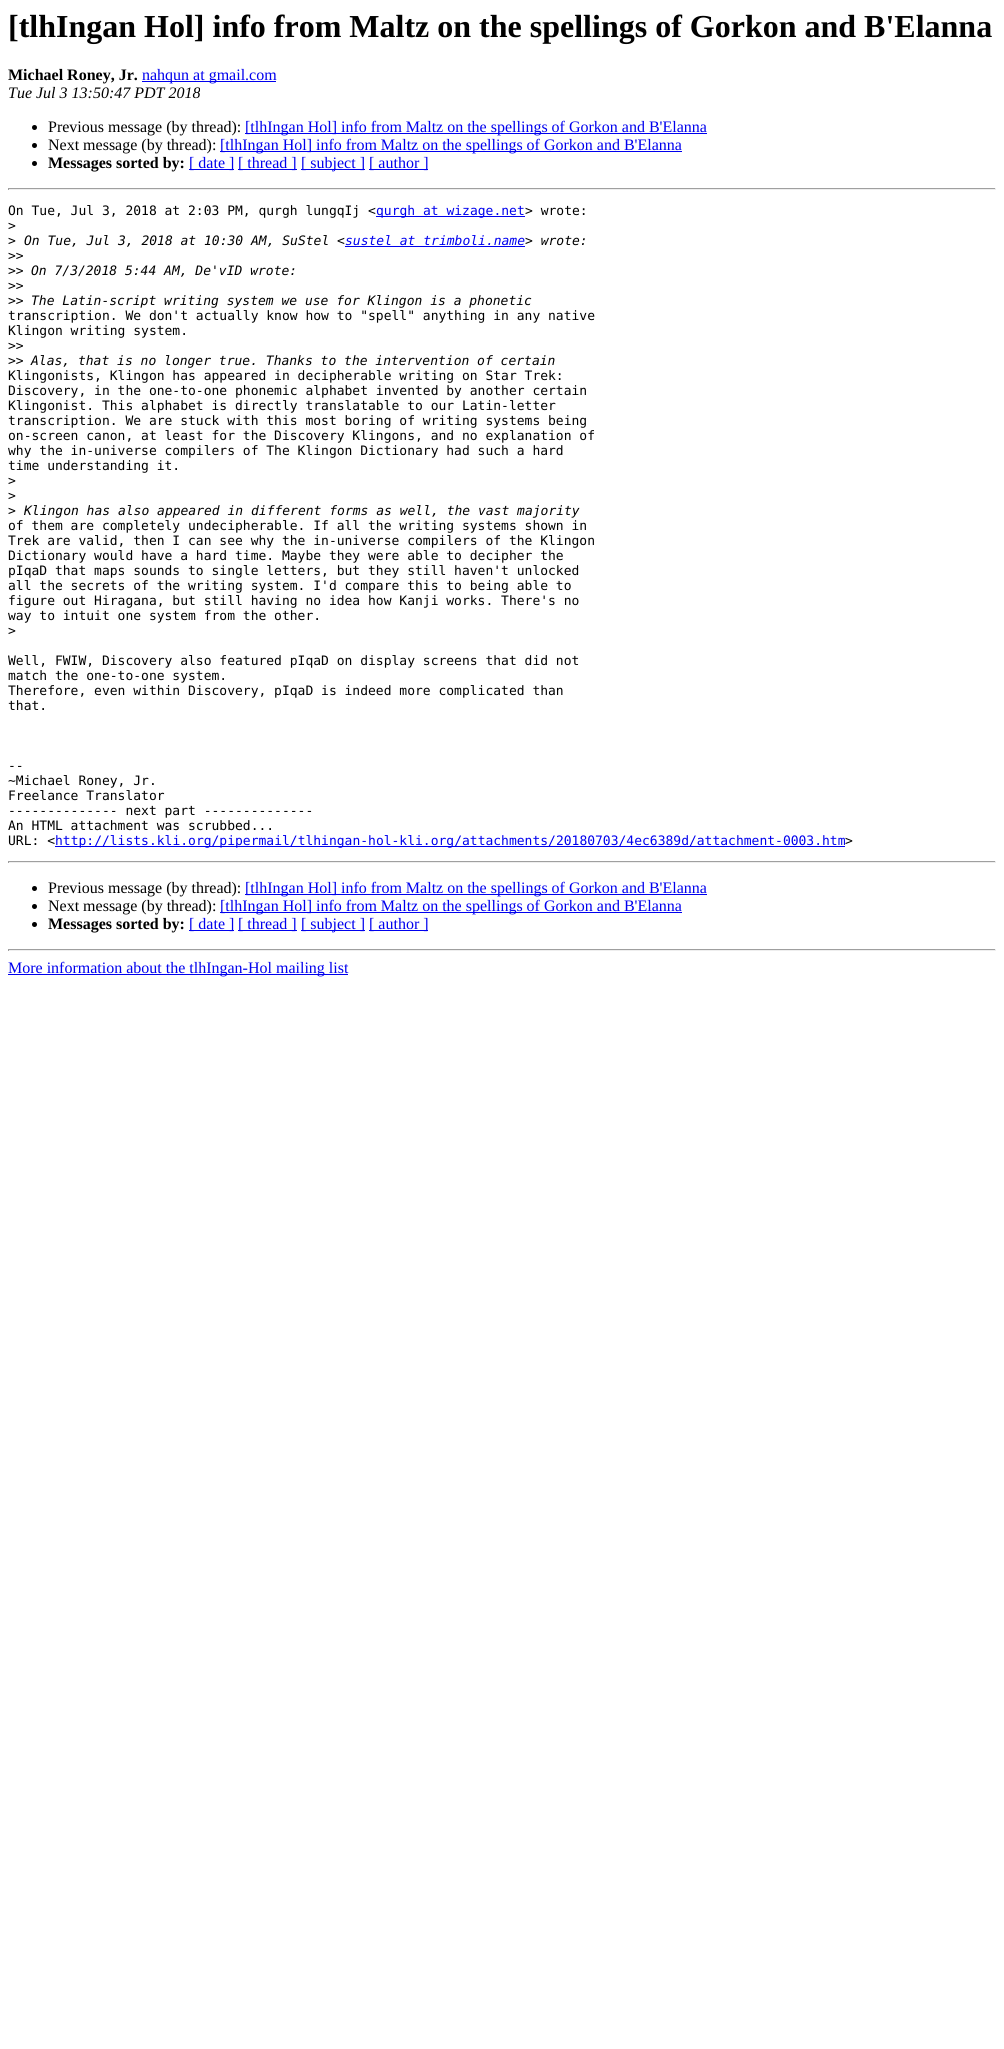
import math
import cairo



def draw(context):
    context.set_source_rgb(1, 1, 1)
    context.paint()
    context.set_source_rgb(0, 0, 238 / 255)
    context.rectangle(142, 81, 134, 1)
    context.fill()
    context.set_source_rgb(0, 0, 0)
    context.arc(34.5, 127.5, 2.5, 0, 2 * math.pi)
    context.fill()
    context.set_source_rgb(0, 0, 238 / 255)
    context.rectangle(245, 133, 462, 1)
    context.fill()
    context.set_source_rgb(0, 0, 0)
    context.arc(34.5, 145.5, 2.5, 0, 2 * math.pi)
    context.fill()
    context.set_source_rgb(0, 0, 238 / 255)
    context.rectangle(220, 151, 462, 1)
    context.fill()
    context.set_source_rgb(0, 0, 0)
    context.arc(34.5, 163.5, 2.5, 0, 2 * math.pi)
    context.fill()
    context.set_source_rgb(0, 0, 238 / 255)
    context.rectangle(189, 169, 45, 1)
    context.fill()
    context.rectangle(238, 169, 59, 1)
    context.fill()
    context.rectangle(301, 169, 64, 1)
    context.fill()
    context.rectangle(369, 169, 59, 1)
    context.fill()
    context.set_source_rgb(159 / 255, 159 / 255, 159 / 255)
    context.rectangle(8, 188, 988, 1)
    context.fill()
    context.set_source_rgb(238 / 255, 238 / 255, 238 / 255)
    context.rectangle(995, 188, 1, 2)
    context.fill()
    context.rectangle(8, 189, 988, 1)
    context.fill()
    context.set_source_rgb(159 / 255, 159 / 255, 159 / 255)
    context.rectangle(8, 188, 1, 2)
    context.fill()
    context.set_source_rgb(0, 0, 238 / 255)
    context.rectangle(376, 216, 149, 1)
    context.fill()
    context.rectangle(345, 246, 180, 1)
    context.fill()
    context.rectangle(55, 846, 790, 1)
    context.fill()
    context.set_source_rgb(159 / 255, 159 / 255, 159 / 255)
    context.rectangle(8, 861, 988, 1)
    context.fill()
    context.set_source_rgb(238 / 255, 238 / 255, 238 / 255)
    context.rectangle(995, 861, 1, 2)
    context.fill()
    context.rectangle(8, 862, 988, 1)
    context.fill()
    context.set_source_rgb(159 / 255, 159 / 255, 159 / 255)
    context.rectangle(8, 861, 1, 2)
    context.fill()
    context.set_source_rgb(0, 0, 0)
    context.arc(34.5, 888.5, 2.5, 0, 2 * math.pi)
    context.fill()
    context.set_source_rgb(0, 0, 238 / 255)
    context.rectangle(245, 894, 462, 1)
    context.fill()
    context.set_source_rgb(0, 0, 0)
    context.arc(34.5, 906.5, 2.5, 0, 2 * math.pi)
    context.fill()
    context.set_source_rgb(0, 0, 238 / 255)
    context.rectangle(220, 912, 462, 1)
    context.fill()
    context.set_source_rgb(0, 0, 0)
    context.arc(34.5, 924.5, 2.5, 0, 2 * math.pi)
    context.fill()
    context.set_source_rgb(0, 0, 238 / 255)
    context.rectangle(189, 930, 45, 1)
    context.fill()
    context.rectangle(238, 930, 59, 1)
    context.fill()
    context.rectangle(301, 930, 64, 1)
    context.fill()
    context.rectangle(369, 930, 59, 1)
    context.fill()
    context.set_source_rgb(159 / 255, 159 / 255, 159 / 255)
    context.rectangle(8, 949, 988, 1)
    context.fill()
    context.set_source_rgb(238 / 255, 238 / 255, 238 / 255)
    context.rectangle(995, 949, 1, 2)
    context.fill()
    context.rectangle(8, 950, 988, 1)
    context.fill()
    context.set_source_rgb(159 / 255, 159 / 255, 159 / 255)
    context.rectangle(8, 949, 1, 2)
    context.fill()
    context.set_source_rgb(0, 0, 238 / 255)
    context.rectangle(8, 974, 340, 1)
    context.fill()
    context.select_font_face("Liberation Serif", cairo.FontSlant.NORMAL, cairo.FontWeight.BOLD)
    context.set_font_size(32)
    context.set_source_rgb(0, 0, 0)
    context.move_to(8, 37)
    context.show_text("[tlhIngan Hol] info from Maltz on the spellings of Gorkon and B'Elanna")
    context.set_font_size(16)
    context.move_to(8, 80)
    context.show_text("Michael Roney, Jr.")
    context.select_font_face("Liberation Serif")
    context.set_source_rgb(0, 0, 238 / 255)
    context.move_to(142, 80)
    context.show_text("nahqun at gmail.com")
    context.select_font_face("Liberation Serif", cairo.FontSlant.ITALIC)
    context.set_source_rgb(0, 0, 0)
    context.move_to(8, 98)
    context.show_text("Tue Jul 3 13:50:47 PDT 2018")
    context.select_font_face("Liberation Serif")
    context.move_to(48, 132)
    context.show_text("Previous message (by thread):")
    context.set_source_rgb(0, 0, 238 / 255)
    context.move_to(245, 132)
    context.show_text("[tlhIngan Hol] info from Maltz on the spellings of Gorkon and B'Elanna")
    context.set_source_rgb(0, 0, 0)
    context.move_to(48, 150)
    context.show_text("Next message (by thread):")
    context.set_source_rgb(0, 0, 238 / 255)
    context.move_to(220, 150)
    context.show_text("[tlhIngan Hol] info from Maltz on the spellings of Gorkon and B'Elanna")
    context.select_font_face("Liberation Serif", cairo.FontSlant.NORMAL, cairo.FontWeight.BOLD)
    context.set_source_rgb(0, 0, 0)
    context.move_to(48, 168)
    context.show_text("Messages sorted by:")
    context.select_font_face("Liberation Serif")
    context.set_source_rgb(0, 0, 238 / 255)
    context.move_to(189, 168)
    context.show_text("[ date ]")
    context.move_to(238, 168)
    context.show_text("[ thread ]")
    context.move_to(301, 168)
    context.show_text("[ subject ]")
    context.move_to(369, 168)
    context.show_text("[ author ]")
    context.select_font_face("DejaVu Sans Mono")
    context.set_font_size(13)
    context.set_source_rgb(0, 0, 0)
    context.move_to(8, 215)
    context.show_text("On Tue, Jul 3, 2018 at 2:03 PM, qurgh lungqIj <")
    context.set_source_rgb(0, 0, 238 / 255)
    context.move_to(376, 215)
    context.show_text("qurgh at wizage.net")
    context.set_source_rgb(0, 0, 0)
    context.move_to(525, 215)
    context.show_text("> wrote:")
    context.move_to(8, 230)
    context.show_text(">")
    context.move_to(8, 245)
    context.show_text(">")
    context.select_font_face("DejaVu Sans Mono", cairo.FontSlant.ITALIC)
    context.move_to(24, 245)
    context.show_text("On Tue, Jul 3, 2018 at 10:30 AM, SuStel <")
    context.set_source_rgb(0, 0, 238 / 255)
    context.move_to(345, 245)
    context.show_text("sustel at trimboli.name")
    context.set_source_rgb(0, 0, 0)
    context.move_to(525, 245)
    context.show_text("> wrote:")
    context.select_font_face("DejaVu Sans Mono")
    context.move_to(8, 260)
    context.show_text(">>")
    context.move_to(8, 275)
    context.show_text(">>")
    context.select_font_face("DejaVu Sans Mono", cairo.FontSlant.ITALIC)
    context.move_to(31, 275)
    context.show_text("On 7/3/2018 5:44 AM, De'vID wrote:")
    context.select_font_face("DejaVu Sans Mono")
    context.move_to(8, 290)
    context.show_text(">>")
    context.move_to(8, 305)
    context.show_text(">>")
    context.select_font_face("DejaVu Sans Mono", cairo.FontSlant.ITALIC)
    context.move_to(31, 305)
    context.show_text("The Latin-script writing system we use for Klingon is a phonetic")
    context.select_font_face("DejaVu Sans Mono")
    context.move_to(8, 320)
    context.show_text("transcription. We don't actually know how to \"spell\" anything in any native")
    context.move_to(8, 335)
    context.show_text("Klingon writing system.")
    context.move_to(8, 350)
    context.show_text(">>")
    context.move_to(8, 365)
    context.show_text(">>")
    context.select_font_face("DejaVu Sans Mono", cairo.FontSlant.ITALIC)
    context.move_to(31, 365)
    context.show_text("Alas, that is no longer true. Thanks to the intervention of certain")
    context.select_font_face("DejaVu Sans Mono")
    context.move_to(8, 380)
    context.show_text("Klingonists, Klingon has appeared in decipherable writing on Star Trek:")
    context.move_to(8, 395)
    context.show_text("Discovery, in the one-to-one phonemic alphabet invented by another certain")
    context.move_to(8, 410)
    context.show_text("Klingonist. This alphabet is directly translatable to our Latin-letter")
    context.move_to(8, 425)
    context.show_text("transcription. We are stuck with this most boring of writing systems being")
    context.move_to(8, 440)
    context.show_text("on-screen canon, at least for the Discovery Klingons, and no explanation of")
    context.move_to(8, 455)
    context.show_text("why the in-universe compilers of The Klingon Dictionary had such a hard")
    context.move_to(8, 470)
    context.show_text("time understanding it.")
    context.move_to(8, 485)
    context.show_text(">")
    context.move_to(8, 500)
    context.show_text(">")
    context.move_to(8, 515)
    context.show_text(">")
    context.select_font_face("DejaVu Sans Mono", cairo.FontSlant.ITALIC)
    context.move_to(24, 515)
    context.show_text("Klingon has also appeared in different forms as well, the vast majority")
    context.select_font_face("DejaVu Sans Mono")
    context.move_to(8, 530)
    context.show_text("of them are completely undecipherable. If all the writing systems shown in")
    context.move_to(8, 545)
    context.show_text("Trek are valid, then I can see why the in-universe compilers of the Klingon")
    context.move_to(8, 560)
    context.show_text("Dictionary would have a hard time. Maybe they were able to decipher the")
    context.move_to(8, 575)
    context.show_text("pIqaD that maps sounds to single letters, but they still haven't unlocked")
    context.move_to(8, 590)
    context.show_text("all the secrets of the writing system. I'd compare this to being able to")
    context.move_to(8, 605)
    context.show_text("figure out Hiragana, but still having no idea how Kanji works. There's no")
    context.move_to(8, 620)
    context.show_text("way to intuit one system from the other.")
    context.move_to(8, 635)
    context.show_text(">")
    context.move_to(8, 665)
    context.show_text("Well, FWIW, Discovery also featured pIqaD on display screens that did not")
    context.move_to(8, 680)
    context.show_text("match the one-to-one system.")
    context.move_to(8, 695)
    context.show_text("Therefore, even within Discovery, pIqaD is indeed more complicated than")
    context.move_to(8, 710)
    context.show_text("that.")
    context.move_to(8, 770)
    context.show_text("--")
    context.move_to(8, 785)
    context.show_text("~Michael Roney, Jr.")
    context.move_to(8, 800)
    context.show_text("Freelance Translator")
    context.move_to(8, 815)
    context.show_text("-------------- next part --------------")
    context.move_to(8, 830)
    context.show_text("An HTML attachment was scrubbed...")
    context.move_to(8, 845)
    context.show_text("URL: <")
    context.set_source_rgb(0, 0, 238 / 255)
    context.move_to(55, 845)
    context.show_text("http://lists.kli.org/pipermail/tlhingan-hol-kli.org/attachments/20180703/4ec6389d/attachment-0003.htm")
    context.set_source_rgb(0, 0, 0)
    context.move_to(845, 845)
    context.show_text(">")
    context.select_font_face("Liberation Serif")
    context.set_font_size(16)
    context.move_to(48, 893)
    context.show_text("Previous message (by thread):")
    context.set_source_rgb(0, 0, 238 / 255)
    context.move_to(245, 893)
    context.show_text("[tlhIngan Hol] info from Maltz on the spellings of Gorkon and B'Elanna")
    context.set_source_rgb(0, 0, 0)
    context.move_to(48, 911)
    context.show_text("Next message (by thread):")
    context.set_source_rgb(0, 0, 238 / 255)
    context.move_to(220, 911)
    context.show_text("[tlhIngan Hol] info from Maltz on the spellings of Gorkon and B'Elanna")
    context.select_font_face("Liberation Serif", cairo.FontSlant.NORMAL, cairo.FontWeight.BOLD)
    context.set_source_rgb(0, 0, 0)
    context.move_to(48, 929)
    context.show_text("Messages sorted by:")
    context.select_font_face("Liberation Serif")
    context.set_source_rgb(0, 0, 238 / 255)
    context.move_to(189, 929)
    context.show_text("[ date ]")
    context.move_to(238, 929)
    context.show_text("[ thread ]")
    context.move_to(301, 929)
    context.show_text("[ subject ]")
    context.move_to(369, 929)
    context.show_text("[ author ]")
    context.move_to(8, 973)
    context.show_text("More information about the tlhIngan-Hol mailing list")


surface = cairo.ImageSurface(cairo.Format.RGB24, 1004, 2049)
context = cairo.Context(surface)
options = cairo.FontOptions()
options.set_hint_metrics(cairo.HintMetrics.OFF)
options.set_hint_style(cairo.HintStyle.NONE)
context.set_font_options(options)
context.set_miter_limit(4)
draw(context)
surface.write_to_png("out.png")
